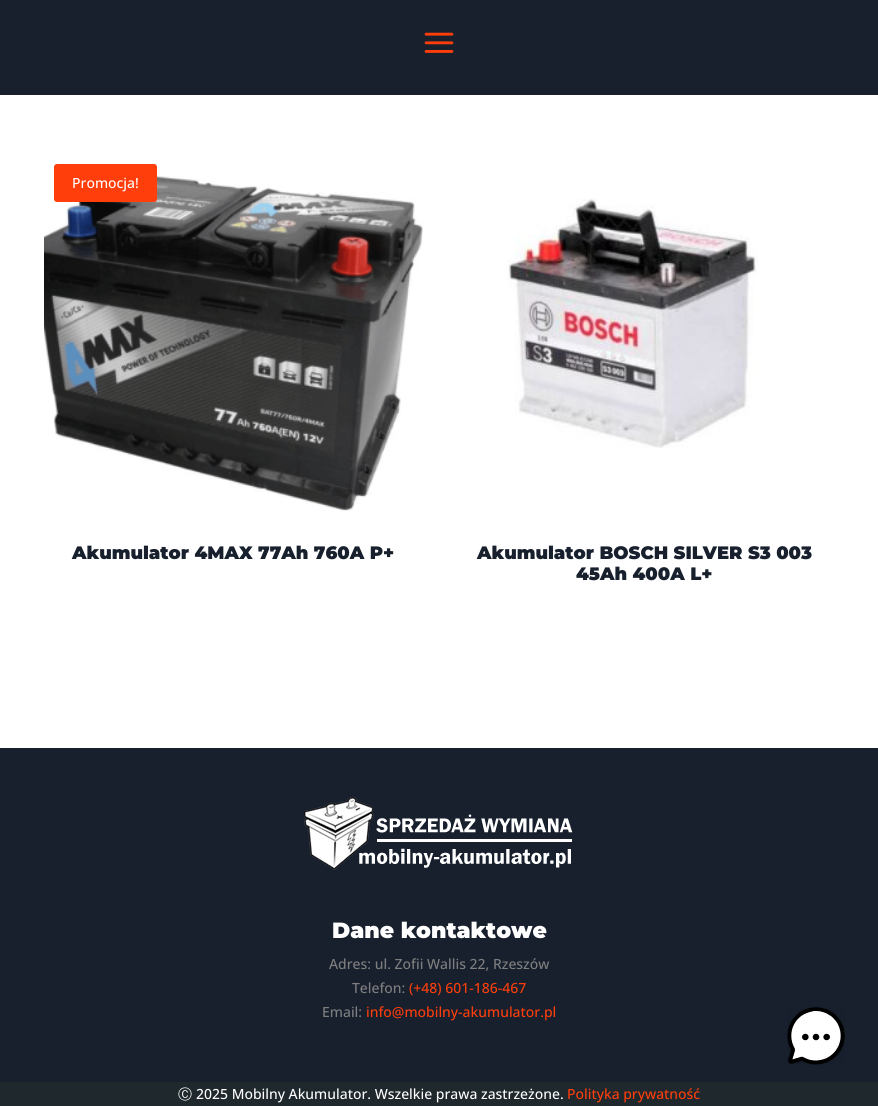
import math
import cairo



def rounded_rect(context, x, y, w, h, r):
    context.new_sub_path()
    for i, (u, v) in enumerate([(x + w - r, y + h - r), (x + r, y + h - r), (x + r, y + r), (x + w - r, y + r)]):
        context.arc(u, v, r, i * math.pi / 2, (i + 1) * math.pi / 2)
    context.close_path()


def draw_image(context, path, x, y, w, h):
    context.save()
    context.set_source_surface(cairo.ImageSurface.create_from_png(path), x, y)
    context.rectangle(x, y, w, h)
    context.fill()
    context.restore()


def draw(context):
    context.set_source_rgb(1, 1, 1)
    context.paint()
    context.set_source_rgb(24 / 255, 32 / 255, 46 / 255)
    context.rectangle(0, 0, 878, 95)
    context.fill()
    draw_image(context, "images/1.png", 424, 32, 30, 21)
    draw_image(context, "images/2.png", 44, 173, 379, 338)
    context.set_source_rgb(1, 62 / 255, 11 / 255)
    rounded_rect(context, 54, 164, 103, 38, 3)
    context.fill()
    draw_image(context, "images/3.png", 506, 198, 252, 250)
    context.set_source_rgb(24 / 255, 32 / 255, 46 / 255)
    context.rectangle(0, 748, 878, 334)
    context.fill()
    draw_image(context, "images/4.png", 304, 797, 269, 73)
    context.set_source_rgb(31 / 255, 40 / 255, 45 / 255)
    context.rectangle(0, 1082, 878, 24)
    context.fill()
    draw_image(context, "images/5.png", 787, 1007, 58, 58)
    context.select_font_face("Open Sans Medium")
    context.set_font_size(14)
    context.set_source_rgb(1, 1, 1)
    context.move_to(72, 188)
    context.show_text("Promocja!")
    context.select_font_face("Montserrat Thin")
    context.set_font_size(18)
    context.set_source_rgb(24 / 255, 32 / 255, 46 / 255)
    context.move_to(72, 559)
    context.show_text("Akumulator 4MAX 77Ah 760A P+")
    context.move_to(477, 559)
    context.show_text("Akumulator BOSCH SILVER S3 003")
    context.move_to(576, 580)
    context.show_text("45Ah 400A L+")
    context.set_font_size(22)
    context.set_source_rgb(1, 1, 1)
    context.move_to(332, 938)
    context.show_text("Dane kontaktowe")
    context.select_font_face("Open Sans Medium")
    context.set_font_size(14)
    context.set_source_rgb(127 / 255, 127 / 255, 127 / 255)
    context.move_to(329, 969)
    context.show_text("Adres: ul. Zofii Wallis 22, Rzeszów")
    context.move_to(352, 993)
    context.show_text("Telefon:")
    context.set_source_rgb(1, 62 / 255, 11 / 255)
    context.move_to(409, 993)
    context.show_text("(+48) 601-186-467")
    context.set_source_rgb(127 / 255, 127 / 255, 127 / 255)
    context.move_to(322, 1017)
    context.show_text("Email:")
    context.set_source_rgb(1, 62 / 255, 11 / 255)
    context.move_to(366, 1017)
    context.show_text("info@mobilny-akumulator.pl")
    context.select_font_face("WenQuanYi Zen Hei Medium")
    context.set_source_rgb(1, 1, 1)
    context.move_to(178, 1099)
    context.show_text("Ⓒ")
    context.select_font_face("Open Sans Medium")
    context.move_to(196, 1099)
    context.show_text("2025 Mobilny Akumulator. Wszelkie prawa zastrzeżone.")
    context.set_source_rgb(1, 62 / 255, 11 / 255)
    context.move_to(567, 1099)
    context.show_text("Polityka prywatność")


surface = cairo.ImageSurface(cairo.Format.RGB24, 878, 1106)
context = cairo.Context(surface)
options = cairo.FontOptions()
options.set_hint_metrics(cairo.HintMetrics.OFF)
options.set_hint_style(cairo.HintStyle.NONE)
context.set_font_options(options)
context.set_miter_limit(4)
draw(context)
surface.write_to_png("out.png")
